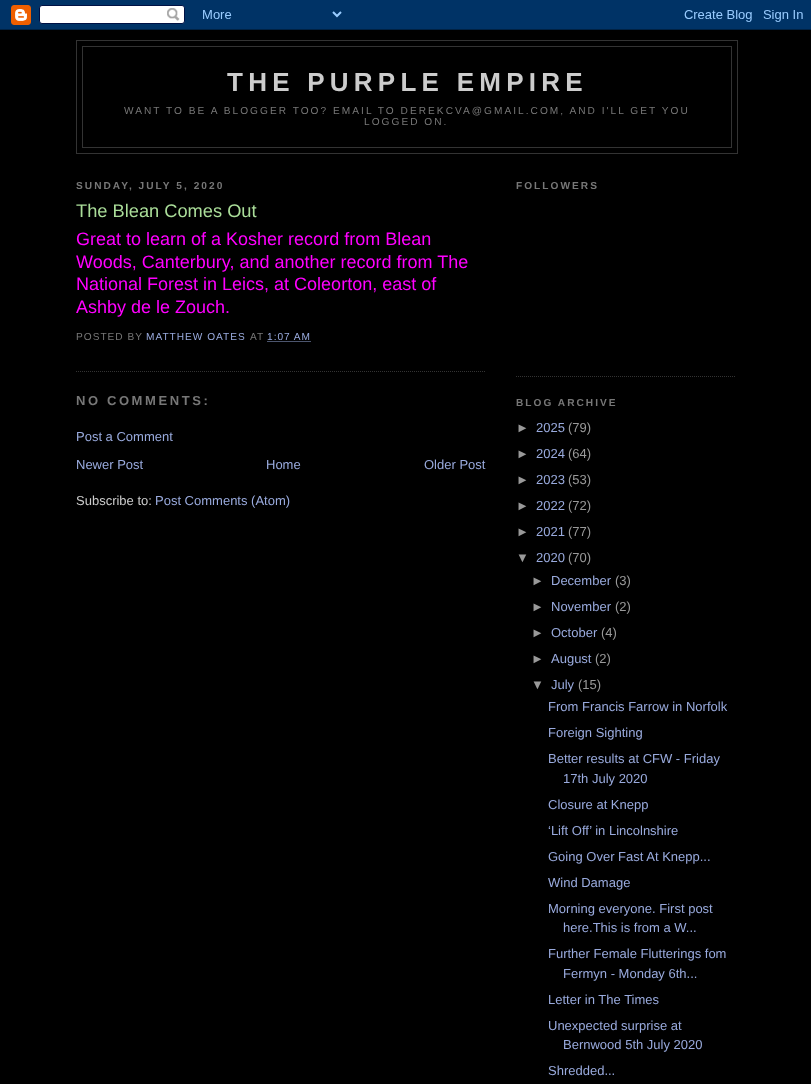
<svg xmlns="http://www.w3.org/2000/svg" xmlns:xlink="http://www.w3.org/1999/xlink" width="811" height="1084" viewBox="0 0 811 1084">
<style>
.cls-1{font:bold 26px Liberation Sans;letter-spacing:5.25px;fill:#cccccc}
.cls-2{font:10.15px Liberation Sans;letter-spacing:2.03px;fill:#777777}
.cls-3{font:bold 10.15px Liberation Sans;letter-spacing:2.03px;fill:#777777}
.cls-4{font:18.25px Liberation Sans;fill:#aadd99}
.cls-5{font:18px Liberation Sans;fill:#ff00ff}
.cls-6{font:10.15px Liberation Sans;letter-spacing:1px;fill:#777777}
.cls-7{font:10.15px Liberation Sans;letter-spacing:1px;fill:#99aadd}
.cls-8{font:bold 13px Liberation Sans;letter-spacing:2.6px;fill:#777777}
.cls-9{font:13px Liberation Sans;fill:#99aadd}
.cls-10{font:13px Liberation Sans;fill:#cccccc}
.cls-11{font:13px Liberation Sans;fill:#999999}
</style>
<rect width="100%" height="100%" fill="#000000"/>
<image xlink:href="image0.png" x="0" y="0" width="811" height="30"/>
<rect fill="none" stroke="#333333" x="76.5" y="40.5" width="661" height="113"/>
<rect fill="none" stroke="#333333" x="82.5" y="46.5" width="649" height="101"/>
<path fill="none" stroke="#333333" stroke-dasharray="1 1" d="M76 371.5H486"/>
<path fill="none" stroke="#99aadd" stroke-dasharray="1 1" d="M267.5 341.5H311.5"/>
<path fill="none" stroke="#333333" stroke-dasharray="1 1" d="M516 376.5H736"/>
<text class="cls-1" x="227" y="91">THE PURPLE EMPIRE</text>
<text class="cls-2" x="124" y="114">WANT TO BE A BLOGGER TOO? EMAIL TO DEREKCVA@GMAIL.COM, AND I'LL GET YOU</text>
<text class="cls-2" x="364" y="125">LOGGED ON.</text>
<text class="cls-3" x="76" y="189">SUNDAY, JULY 5, 2020</text>
<text class="cls-4" x="76" y="217">The Blean Comes Out</text>
<text class="cls-5"><tspan x="76" y="245">Great to learn of a Kosher record from Blean</tspan><tspan x="76" y="268">Woods, Canterbury, and another record from The</tspan><tspan x="76" y="290">National Forest in Leics, at Coleorton, east of</tspan><tspan x="76" y="313">Ashby de le Zouch.</tspan></text>
<text class="cls-6" x="76" y="340">POSTED BY</text>
<text class="cls-7" x="146" y="340">MATTHEW OATES</text>
<text class="cls-6" x="250" y="340">AT</text>
<text class="cls-7" x="267" y="340">1:07 AM</text>
<text class="cls-8" x="76" y="405">NO COMMENTS:</text>
<text class="cls-9" x="76" y="441">Post a Comment</text>
<text class="cls-9" x="76" y="469">Newer Post</text>
<text class="cls-9" x="266" y="469">Home</text>
<text class="cls-9" x="424" y="469">Older Post</text>
<text class="cls-10" x="76" y="505">Subscribe to:</text>
<text class="cls-9" x="155" y="505">Post Comments (Atom)</text>
<text class="cls-3" x="516" y="189">FOLLOWERS</text>
<text class="cls-3" x="516" y="406">BLOG ARCHIVE</text>
<text class="cls-11" x="516" y="432">►</text>
<text class="cls-9" x="536" y="432">2025</text>
<text class="cls-11" x="568" y="432">(79)</text>
<text class="cls-11" x="516" y="458">►</text>
<text class="cls-9" x="536" y="458">2024</text>
<text class="cls-11" x="568" y="458">(64)</text>
<text class="cls-11" x="516" y="484">►</text>
<text class="cls-9" x="536" y="484">2023</text>
<text class="cls-11" x="568" y="484">(53)</text>
<text class="cls-11" x="516" y="510">►</text>
<text class="cls-9" x="536" y="510">2022</text>
<text class="cls-11" x="568" y="510">(72)</text>
<text class="cls-11" x="516" y="536">►</text>
<text class="cls-9" x="536" y="536">2021</text>
<text class="cls-11" x="568" y="536">(77)</text>
<text class="cls-11" x="516" y="562">▼</text>
<text class="cls-9" x="536" y="562">2020</text>
<text class="cls-11" x="568" y="562">(70)</text>
<text class="cls-11" x="531" y="585">►</text>
<text class="cls-9" x="551" y="585">December</text>
<text class="cls-11" x="615" y="585">(3)</text>
<text class="cls-11" x="531" y="611">►</text>
<text class="cls-9" x="551" y="611">November</text>
<text class="cls-11" x="615" y="611">(2)</text>
<text class="cls-11" x="531" y="637">►</text>
<text class="cls-9" x="551" y="637">October</text>
<text class="cls-11" x="601" y="637">(4)</text>
<text class="cls-11" x="531" y="663">►</text>
<text class="cls-9" x="551" y="663">August</text>
<text class="cls-11" x="595" y="663">(2)</text>
<text class="cls-11" x="531" y="689">▼</text>
<text class="cls-9" x="551" y="689">July</text>
<text class="cls-11" x="578" y="689">(15)</text>
<text class="cls-9" x="548" y="711">From Francis Farrow in Norfolk</text>
<text class="cls-9" x="548" y="737">Foreign Sighting</text>
<text class="cls-9" x="548" y="763">Better results at CFW - Friday</text>
<text class="cls-9" x="563" y="783">17th July 2020</text>
<text class="cls-9" x="548" y="809">Closure at Knepp</text>
<text class="cls-9" x="548" y="835">‘Lift Off’ in Lincolnshire</text>
<text class="cls-9" x="548" y="861">Going Over Fast At Knepp...</text>
<text class="cls-9" x="548" y="887">Wind Damage</text>
<text class="cls-9" x="548" y="913">Morning everyone. First post</text>
<text class="cls-9" x="563" y="932">here.This is from a W...</text>
<text class="cls-9" x="548" y="958">Further Female Flutterings fom</text>
<text class="cls-9" x="563" y="978">Fermyn - Monday 6th...</text>
<text class="cls-9" x="548" y="1004">Letter in The Times</text>
<text class="cls-9" x="548" y="1030">Unexpected surprise at</text>
<text class="cls-9" x="563" y="1049">Bernwood 5th July 2020</text>
<text class="cls-9" x="548" y="1075">Shredded...</text>
</svg>
